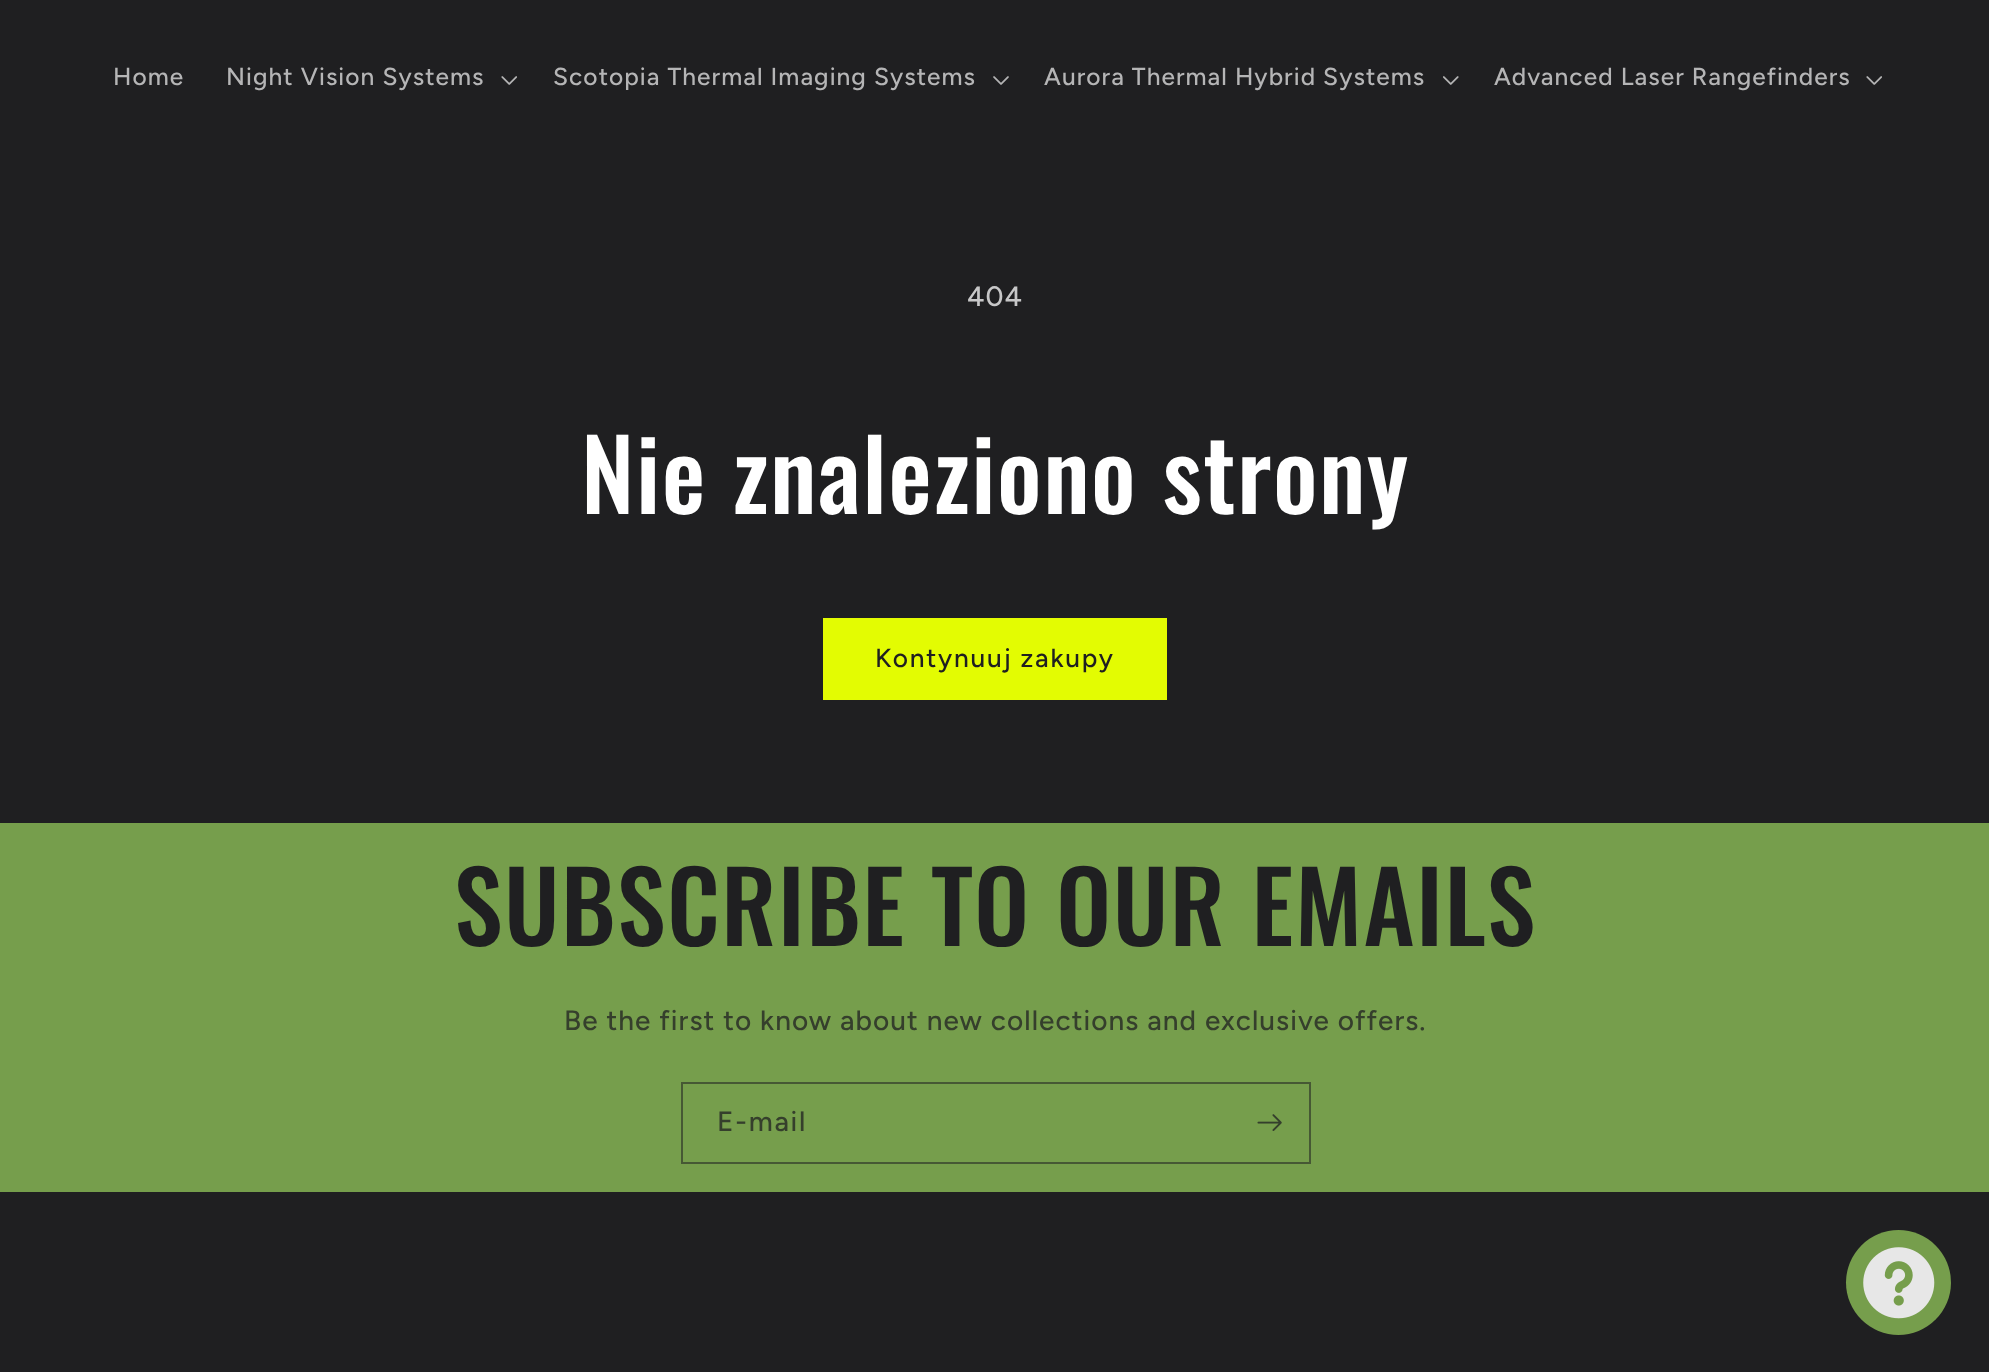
<svg xmlns="http://www.w3.org/2000/svg" xmlns:xlink="http://www.w3.org/1999/xlink" width="1989" height="1372" viewBox="0 0 1989 1372">
<style>
.cls-1{font:500 24.5px Figtree;letter-spacing:1.05px;fill:#b5b5b6}
.cls-2{font:500 28px Figtree;letter-spacing:1.05px;fill:#c7c7c8}
.cls-3{font:500 98px Oswald;letter-spacing:1.5px;fill:#ffffff}
.cls-4{font:500 26.25px Figtree;letter-spacing:1.75px;fill:#1f1f21}
.cls-5{font:500 98px Oswald;letter-spacing:1.5px;fill:#1f1f21}
.cls-6{font:500 28px Figtree;letter-spacing:1.05px;fill:#353f2c}
.cls-7{font:500 28px Figtree;letter-spacing:1.75px;fill:#353f2c}
</style>
<rect width="100%" height="100%" fill="#1f1f21"/>
<image xlink:href="image0.png" x="501" y="76" width="16" height="9"/>
<image xlink:href="image1.png" x="993" y="76" width="16" height="9"/>
<image xlink:href="image2.png" x="1443" y="76" width="16" height="9"/>
<image xlink:href="image0.png" x="1866" y="76" width="16" height="9"/>
<rect fill="#e3fc02" x="823" y="618" width="344" height="82"/>
<rect fill="#769e4c" x="0" y="823" width="1989" height="369"/>
<rect fill="none" stroke="#465834" stroke-width="2" x="682" y="1083" width="628" height="80"/>
<image xlink:href="image3.png" x="1257" y="1114" width="25" height="17"/>
<circle fill="#769e4c" cx="1898.5" cy="1282.5" r="52.5"/>
<image xlink:href="image4.png" x="1863" y="1247" width="72" height="72"/>
<text class="cls-1" x="113" y="85">Home</text>
<text class="cls-1" x="226" y="85">Night Vision Systems</text>
<text class="cls-1" x="553" y="85">Scotopia Thermal Imaging Systems</text>
<text class="cls-1" x="1044" y="85">Aurora Thermal Hybrid Systems</text>
<text class="cls-1" x="1494" y="85">Advanced Laser Rangefinders</text>
<text class="cls-2" x="967" y="306">404</text>
<text class="cls-3" x="581" y="514">Nie znaleziono strony</text>
<text class="cls-4" x="875" y="667">Kontynuuj zakupy</text>
<text class="cls-5" x="454" y="946">SUBSCRIBE TO OUR EMAILS</text>
<text class="cls-6" x="564" y="1030">Be the first to know about new collections and exclusive offers.</text>
<text class="cls-7" x="717" y="1131">E-mail</text>
</svg>
